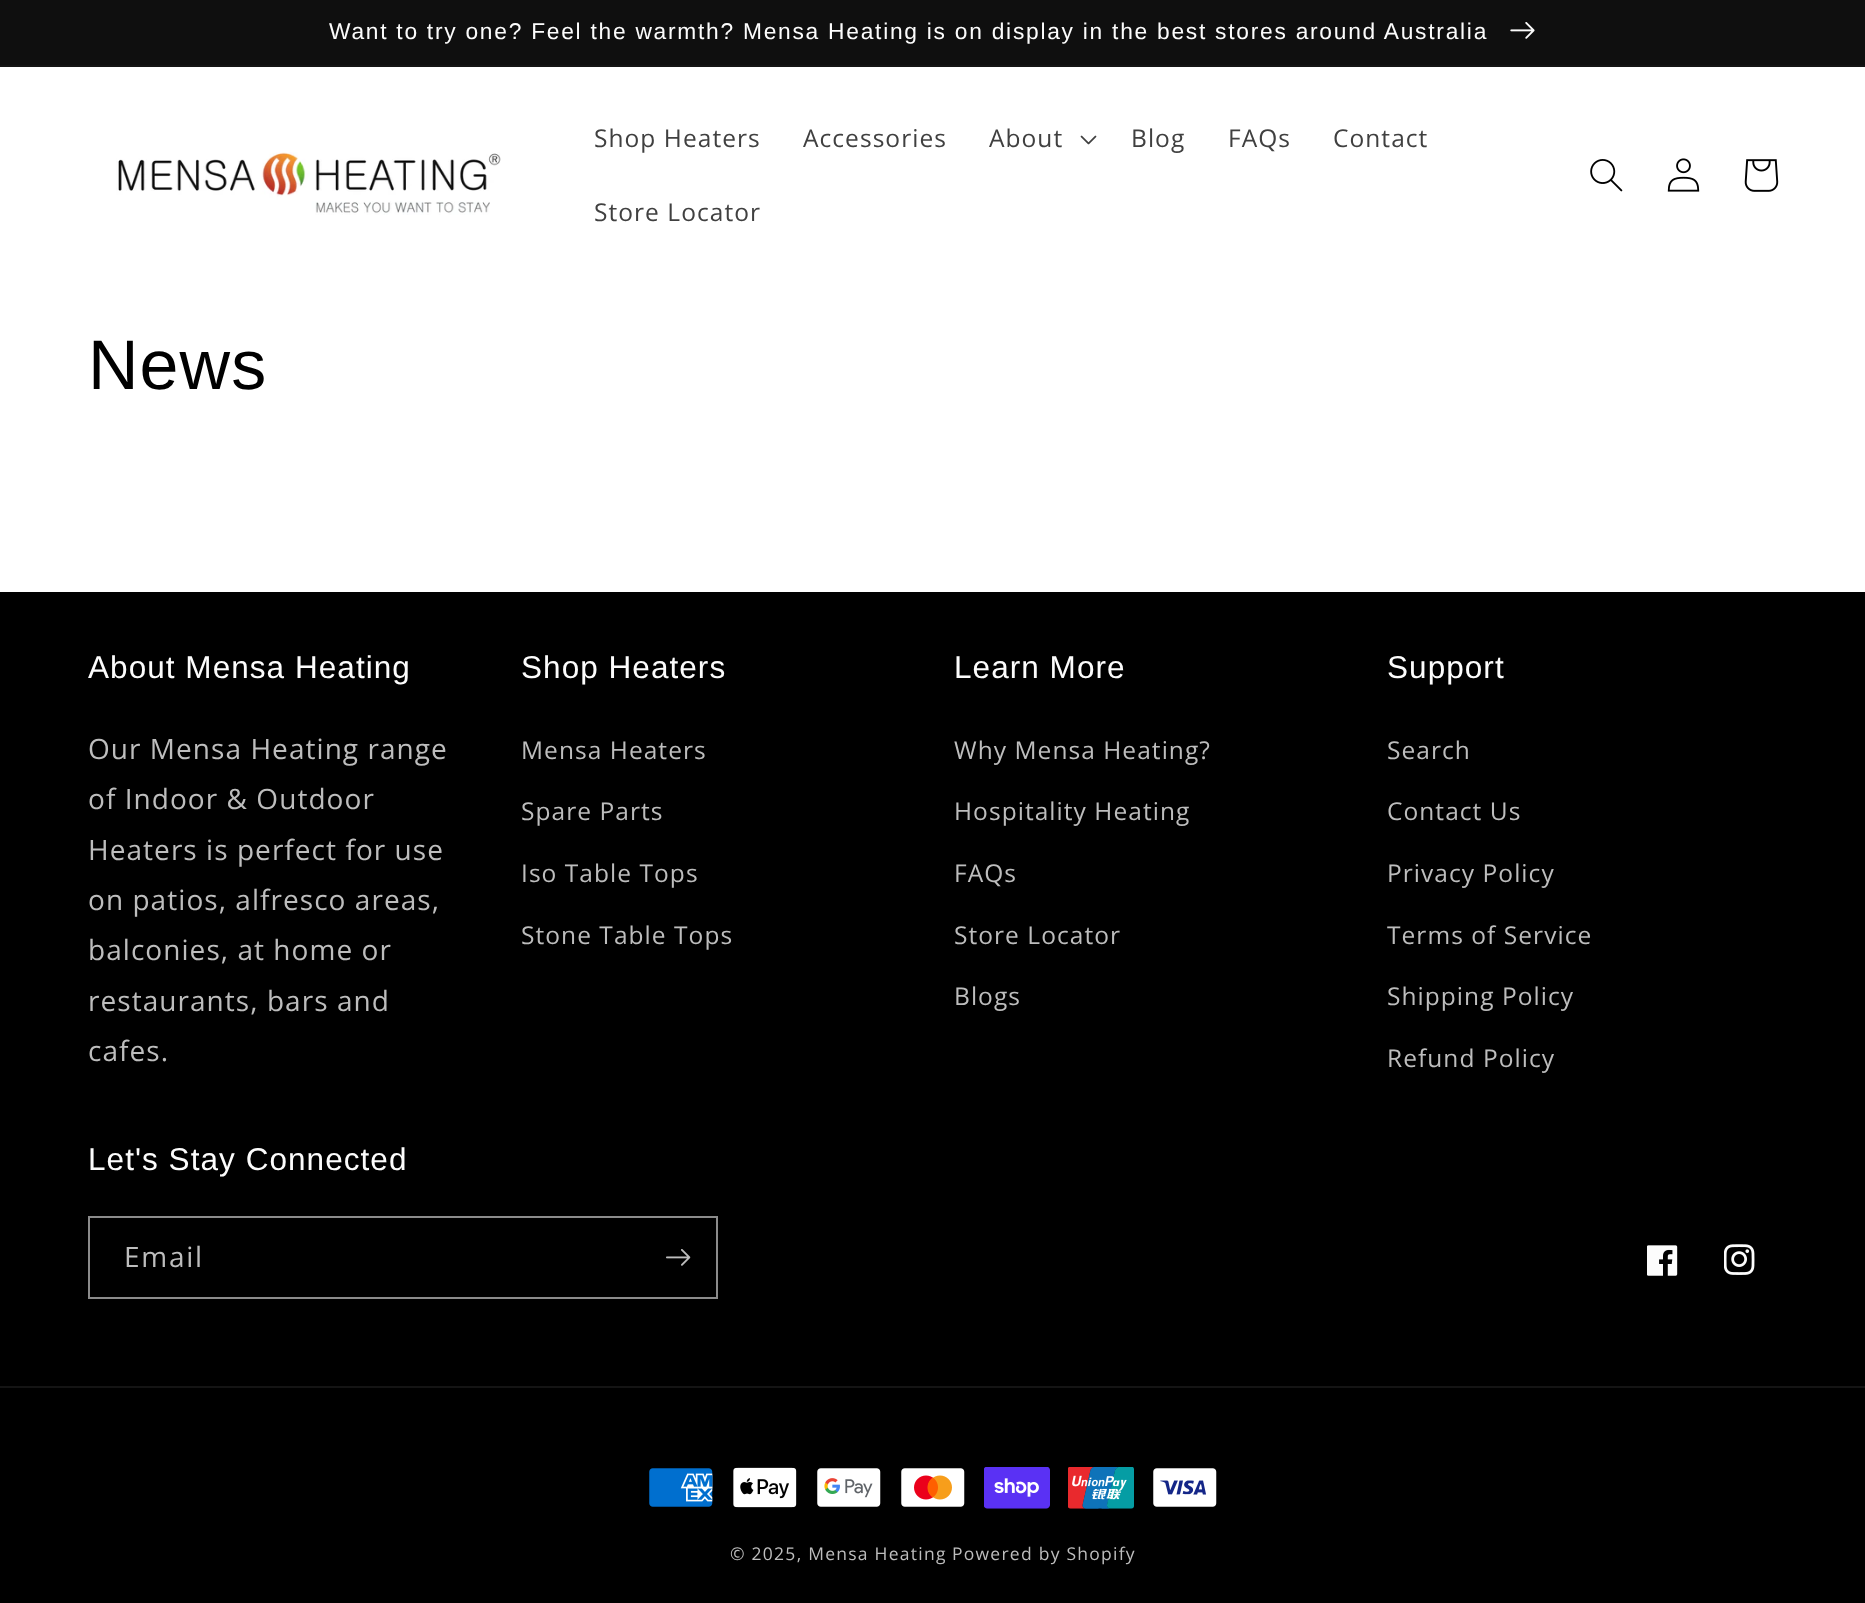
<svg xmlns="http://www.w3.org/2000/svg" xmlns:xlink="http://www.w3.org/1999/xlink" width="1865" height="1603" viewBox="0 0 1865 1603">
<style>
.cls-1{font:22.75px Liberation Sans;letter-spacing:1.75px;fill:#fcfcfc}
.cls-2{font:24.5px Open Sans;letter-spacing:1.05px;fill:#404040}
.cls-3{font:70px Liberation Sans;letter-spacing:1.05px;fill:#000000}
.cls-4{font:31.5px Liberation Sans;letter-spacing:1.05px;fill:#fcfcfc}
.cls-5{font:28px Open Sans;letter-spacing:1.05px;fill:#bdbdbd}
.cls-6{font:24.5px Open Sans;letter-spacing:1.05px;fill:#bdbdbd}
.cls-7{font:28px Open Sans;letter-spacing:1.75px;fill:#bdbdbd}
.cls-8{font:17.5px Open Sans;letter-spacing:1.25px;fill:#bdbdbd}
</style>
<rect width="100%" height="100%" fill="#ffffff"/>
<rect fill="#141414" x="0" y="65" width="1865" height="2"/>
<rect fill="#0f0f0f" x="0" y="0" width="1865" height="65"/>
<image xlink:href="image0.png" x="1510" y="22" width="25" height="17"/>
<image xlink:href="image1.png" x="116" y="152" width="385" height="63"/>
<image xlink:href="image2.png" x="1080" y="135" width="17" height="10"/>
<image xlink:href="image3.png" x="1590" y="159" width="33" height="33"/>
<image xlink:href="image4.png" x="1667" y="158" width="33" height="34"/>
<image xlink:href="image5.png" x="1744" y="159" width="35" height="33"/>
<rect fill="#000000" x="0" y="592" width="1865" height="1011"/>
<rect fill="none" stroke="#8b8b8b" stroke-width="2" x="89" y="1217" width="628" height="81"/>
<image xlink:href="image6.png" x="666" y="1249" width="25" height="17"/>
<image xlink:href="image7.png" x="1647" y="1245" width="31" height="31"/>
<image xlink:href="image8.png" x="1724" y="1244" width="31" height="31"/>
<rect fill="#141414" x="0" y="1386" width="1865" height="2"/>
<image xlink:href="image9.png" x="649" y="1468" width="64" height="39"/>
<image xlink:href="image10.png" x="733" y="1467" width="64" height="41"/>
<image xlink:href="image11.png" x="817" y="1468" width="64" height="39"/>
<image xlink:href="image12.png" x="901" y="1468" width="64" height="39"/>
<image xlink:href="image13.png" x="984" y="1467" width="66" height="42"/>
<image xlink:href="image14.png" x="1068" y="1467" width="66" height="42"/>
<image xlink:href="image15.png" x="1153" y="1468" width="64" height="39"/>
<text class="cls-1" x="329" y="39">Want to try one? Feel the warmth? Mensa Heating is on display in the best stores around Australia</text>
<text class="cls-2" x="594" y="147">Shop Heaters</text>
<text class="cls-2" x="803" y="147">Accessories</text>
<text class="cls-2" x="989" y="147">About</text>
<text class="cls-2" x="1131" y="147">Blog</text>
<text class="cls-2" x="1228" y="147">FAQs</text>
<text class="cls-2" x="1333" y="147">Contact</text>
<text class="cls-2" x="594" y="221">Store Locator</text>
<text class="cls-3" x="88" y="389">News</text>
<text class="cls-4" x="88" y="678">About Mensa Heating</text>
<text class="cls-5"><tspan x="88" y="759">Our Mensa Heating range</tspan><tspan x="88" y="809">of Indoor &amp; Outdoor</tspan><tspan x="88" y="860">Heaters is perfect for use</tspan><tspan x="88" y="910">on patios, alfresco areas,</tspan><tspan x="88" y="960">balconies, at home or</tspan><tspan x="88" y="1011">restaurants, bars and</tspan><tspan x="88" y="1061">cafes.</tspan></text>
<text class="cls-4" x="521" y="678">Shop Heaters</text>
<text class="cls-6" x="521" y="759">Mensa Heaters</text>
<text class="cls-6" x="521" y="820">Spare Parts</text>
<text class="cls-6" x="521" y="882">Iso Table Tops</text>
<text class="cls-6" x="521" y="944">Stone Table Tops</text>
<text class="cls-4" x="954" y="678">Learn More</text>
<text class="cls-6" x="954" y="759">Why Mensa Heating?</text>
<text class="cls-6" x="954" y="820">Hospitality Heating</text>
<text class="cls-6" x="954" y="882">FAQs</text>
<text class="cls-6" x="954" y="944">Store Locator</text>
<text class="cls-6" x="954" y="1005">Blogs</text>
<text class="cls-4" x="1387" y="678">Support</text>
<text class="cls-6" x="1387" y="759">Search</text>
<text class="cls-6" x="1387" y="820">Contact Us</text>
<text class="cls-6" x="1387" y="882">Privacy Policy</text>
<text class="cls-6" x="1387" y="944">Terms of Service</text>
<text class="cls-6" x="1387" y="1005">Shipping Policy</text>
<text class="cls-6" x="1387" y="1067">Refund Policy</text>
<text class="cls-4" x="88" y="1170">Let's Stay Connected</text>
<text class="cls-7" x="124" y="1267">Email</text>
<text class="cls-8" x="730" y="1560">© 2025, Mensa Heating</text>
<text class="cls-8" x="952" y="1560">Powered by Shopify</text>
</svg>
